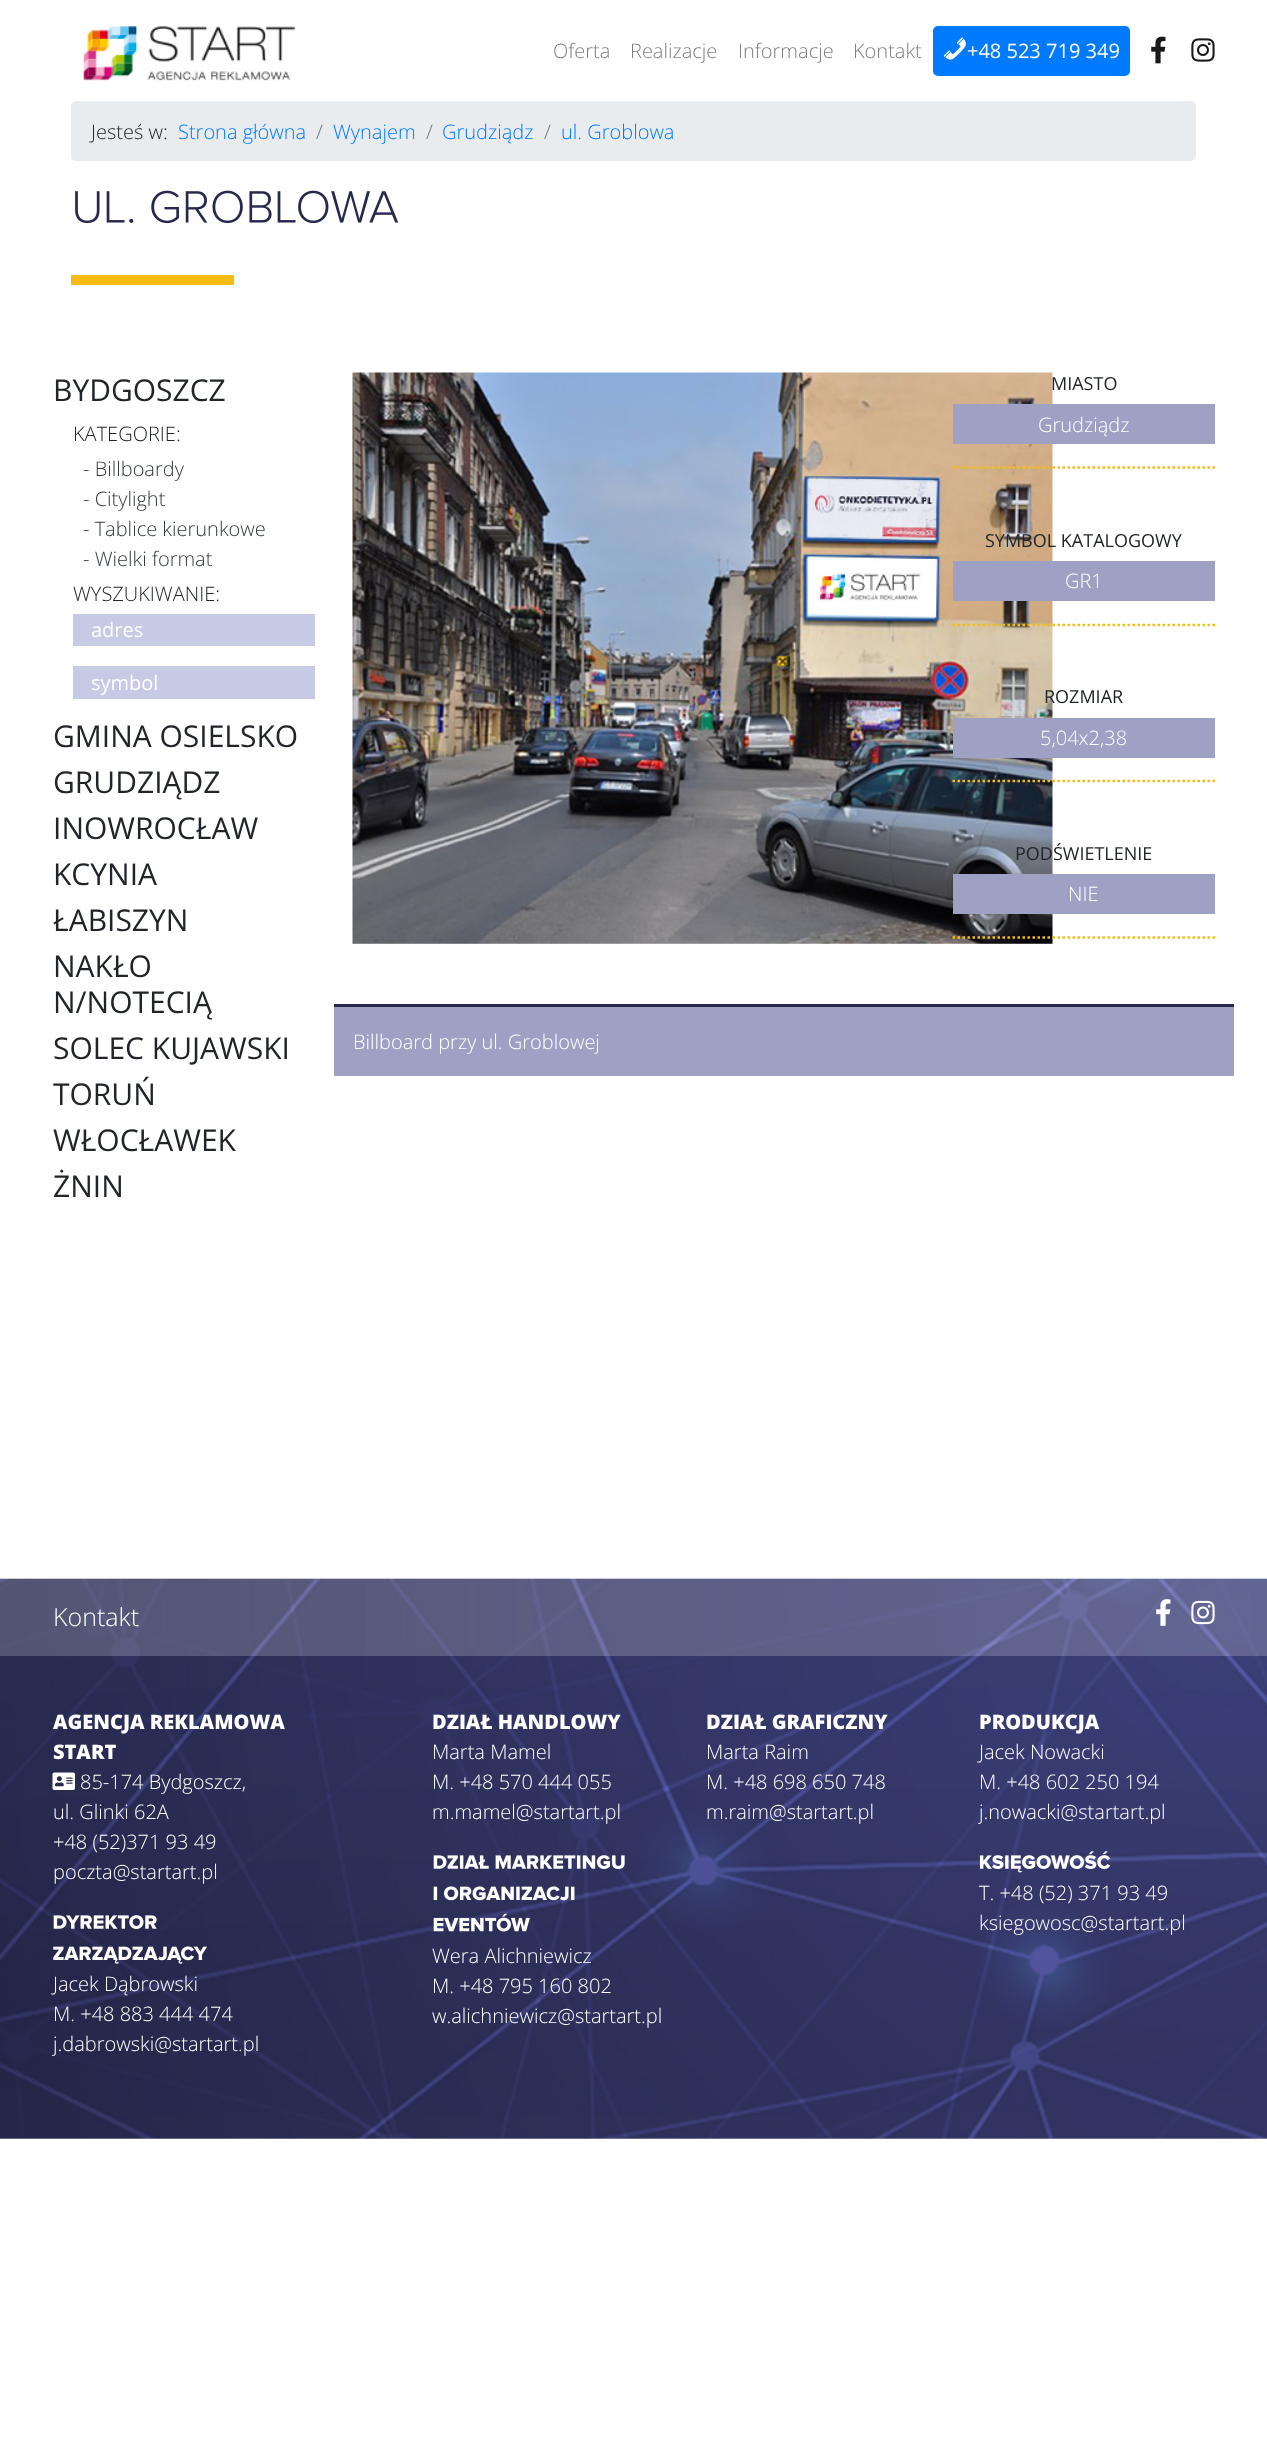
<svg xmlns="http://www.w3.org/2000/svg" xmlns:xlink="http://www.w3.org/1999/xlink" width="1267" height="2457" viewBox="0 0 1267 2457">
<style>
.cls-1{font:300 20px Open Sans;fill:#808080}
.cls-2{font:20px Open Sans;fill:#ffffff}
.cls-3{font:300 20px Open Sans;fill:#212529}
.cls-4{font:300 20px Open Sans;fill:#007bff}
.cls-5{font:300 20px Open Sans;fill:#6c757d}
.cls-6{font:30px Open Sans;fill:#212529}
.cls-7{font:300 20px Open Sans;fill:#343a40}
.cls-8{font:18px Open Sans;fill:#212529}
.cls-9{font:300 20px Open Sans;fill:#ffffff}
.cls-10{font:300 25px Open Sans;fill:#ffffff}
.cls-11{font:800 20px Open Sans;fill:#ffffff}
</style>
<rect width="100%" height="100%" fill="#ffffff"/>
<rect fill="#e9ecef" x="71" y="101" width="1125" height="60" rx="5"/>
<image xlink:href="image0.png" x="74" y="26" width="290" height="76"/>
<rect fill="#007bff" x="933" y="26" width="197" height="50" rx="5"/>
<image xlink:href="image1.png" x="943" y="37" width="23" height="23"/>
<image xlink:href="image2.png" x="1151" y="36" width="15" height="28"/>
<image xlink:href="image3.png" x="1191" y="38" width="24" height="24"/>
<image xlink:href="image4.png" x="75" y="190" width="324" height="34"/>
<rect fill="#f5bd10" x="71" y="275" width="163" height="10"/>
<rect fill="#c7cae5" x="73" y="614" width="242" height="32"/>
<rect fill="#c7cae5" x="73" y="666" width="242" height="33"/>
<image xlink:href="image5.png" x="352" y="372" width="701" height="572"/>
<path fill="none" stroke="#f5bd10" stroke-width="2.5" stroke-dasharray="2.5 2.5" d="M952.5 467.5H1215"/>
<rect fill="#9fa1c4" x="953" y="404" width="262" height="40"/>
<path fill="none" stroke="#f5bd10" stroke-width="2.5" stroke-dasharray="2.5 2.5" d="M952.5 625H1215"/>
<rect fill="#9fa1c4" x="953" y="561" width="262" height="40"/>
<path fill="none" stroke="#f5bd10" stroke-width="2.5" stroke-dasharray="2.5 2.5" d="M952.5 781H1215"/>
<rect fill="#9fa1c4" x="953" y="718" width="262" height="40"/>
<path fill="none" stroke="#f5bd10" stroke-width="2.5" stroke-dasharray="2.5 2.5" d="M952.5 937.5H1215"/>
<rect fill="#9fa1c4" x="953" y="874" width="262" height="40"/>
<rect fill="#9fa1c4" x="334" y="1007" width="900" height="69"/>
<rect fill="#26294c" x="334" y="1004" width="900" height="3"/>
<image xlink:href="image6.png" x="0" y="1578" width="1267" height="561"/>
<rect fill="#ffffff" fill-opacity="0.2" x="0" y="1579" width="1267" height="77"/>
<image xlink:href="image7.png" x="1156" y="1599" width="15" height="27"/>
<image xlink:href="image8.png" x="1191" y="1600" width="24" height="25"/>
<image xlink:href="image9.png" x="52" y="1772" width="23" height="18"/>
<image xlink:href="image10.png" x="53" y="1915" width="104" height="14"/>
<image xlink:href="image11.png" x="53" y="1946" width="154" height="18"/>
<image xlink:href="image12.png" x="433" y="1855" width="192" height="14"/>
<image xlink:href="image13.png" x="433" y="1886" width="142" height="15"/>
<image xlink:href="image14.png" x="433" y="1913" width="97" height="19"/>
<image xlink:href="image15.png" x="979" y="1851" width="132" height="22"/>
<text class="cls-1" x="553" y="58">Oferta</text>
<text class="cls-1" x="630" y="58">Realizacje</text>
<text class="cls-1" x="738" y="58">Informacje</text>
<text class="cls-1" x="853" y="58">Kontakt</text>
<text class="cls-2" x="967" y="58">+48 523 719 349</text>
<text class="cls-3" x="91" y="139">Jesteś w:</text>
<text class="cls-4" x="178" y="139">Strona główna</text>
<text class="cls-5" x="316" y="139">/</text>
<text class="cls-4" x="333" y="139">Wynajem</text>
<text class="cls-5" x="426" y="139">/</text>
<text class="cls-4" x="442" y="139">Grudziądz</text>
<text class="cls-5" x="544" y="139">/</text>
<text class="cls-4" x="561" y="139">ul. Groblowa</text>
<text class="cls-6" x="53" y="401">BYDGOSZCZ</text>
<text class="cls-3" x="73" y="441">KATEGORIE:</text>
<text class="cls-7"><tspan x="83" y="476">- Billboardy</tspan><tspan x="83" y="506">- Citylight</tspan><tspan x="83" y="536">- Tablice kierunkowe</tspan><tspan x="83" y="566">- Wielki format</tspan></text>
<text class="cls-3" x="73" y="601">WYSZUKIWANIE:</text>
<text class="cls-2" x="91" y="637">adres</text>
<text class="cls-2" x="91" y="690">symbol</text>
<text class="cls-6"><tspan x="53" y="747">GMINA OSIELSKO</tspan><tspan x="53" y="793">GRUDZIĄDZ</tspan><tspan x="53" y="839">INOWROCŁAW</tspan><tspan x="53" y="885">KCYNIA</tspan><tspan x="53" y="931">ŁABISZYN</tspan><tspan x="53" y="977">NAKŁO</tspan><tspan x="53" y="1013">N/NOTECIĄ</tspan><tspan x="53" y="1059">SOLEC KUJAWSKI</tspan><tspan x="53" y="1105">TORUŃ</tspan><tspan x="53" y="1151">WŁOCŁAWEK</tspan><tspan x="53" y="1197">ŻNIN</tspan></text>
<text class="cls-8" x="1051" y="390">MIASTO</text>
<text class="cls-9" x="1038" y="432">Grudziądz</text>
<text class="cls-8" x="985" y="547">SYMBOL KATALOGOWY</text>
<text class="cls-9" x="1065" y="588">GR1</text>
<text class="cls-8" x="1044" y="703">ROZMIAR</text>
<text class="cls-9" x="1040" y="745">5,04x2,38</text>
<text class="cls-8" x="1015" y="860">PODŚWIETLENIE</text>
<text class="cls-9" x="1068" y="901">NIE</text>
<text class="cls-9" x="353" y="1049">Billboard przy ul. Groblowej</text>
<text class="cls-10" x="53" y="1626">Kontakt</text>
<text class="cls-11"><tspan x="53" y="1729">AGENCJA REKLAMOWA</tspan><tspan x="53" y="1759">START</tspan></text>
<text class="cls-9" x="80" y="1789">85-174 Bydgoszcz,</text>
<text class="cls-9"><tspan x="53" y="1819">ul. Glinki 62A</tspan><tspan x="53" y="1849">+48 (52)371 93 49</tspan><tspan x="53" y="1879">poczta@startart.pl</tspan></text>
<text class="cls-9"><tspan x="53" y="1991">Jacek Dąbrowski</tspan><tspan x="53" y="2021">M. +48 883 444 474</tspan><tspan x="53" y="2051">j.dabrowski@startart.pl</tspan></text>
<text class="cls-11" x="432" y="1729">DZIAŁ HANDLOWY</text>
<text class="cls-9"><tspan x="432" y="1759">Marta Mamel</tspan><tspan x="432" y="1789">M. +48 570 444 055</tspan><tspan x="432" y="1819">m.mamel@startart.pl</tspan></text>
<text class="cls-9"><tspan x="432" y="1963">Wera Alichniewicz</tspan><tspan x="432" y="1993">M. +48 795 160 802</tspan><tspan x="432" y="2023">w.alichniewicz@startart.pl</tspan></text>
<text class="cls-11" x="706" y="1729">DZIAŁ GRAFICZNY</text>
<text class="cls-9"><tspan x="706" y="1759">Marta Raim</tspan><tspan x="706" y="1789">M. +48 698 650 748</tspan><tspan x="706" y="1819">m.raim@startart.pl</tspan></text>
<text class="cls-11" x="979" y="1729">PRODUKCJA</text>
<text class="cls-9"><tspan x="979" y="1759">Jacek Nowacki</tspan><tspan x="979" y="1789">M. +48 602 250 194</tspan><tspan x="979" y="1819">j.nowacki@startart.pl</tspan></text>
<text class="cls-9"><tspan x="979" y="1900">T. +48 (52) 371 93 49</tspan><tspan x="979" y="1930">ksiegowosc@startart.pl</tspan></text>
</svg>
